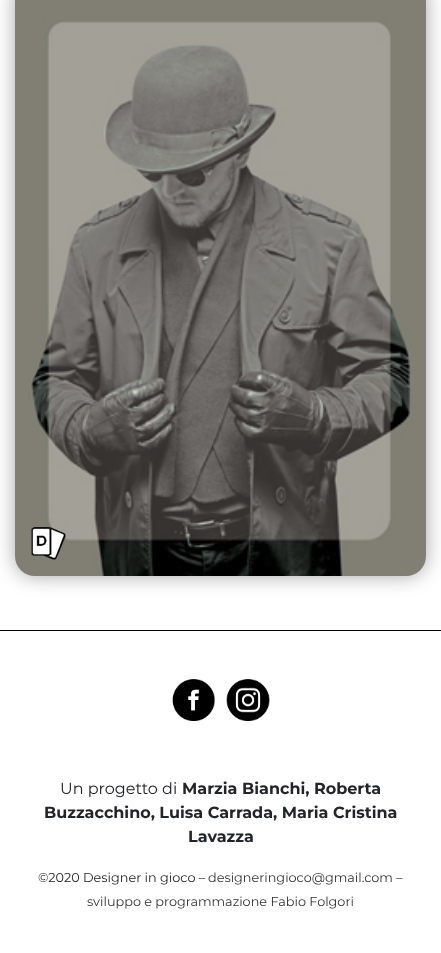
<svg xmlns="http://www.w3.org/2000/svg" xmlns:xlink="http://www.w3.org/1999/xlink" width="441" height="953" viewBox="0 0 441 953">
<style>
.cls-1{font:16px Montserrat;fill:#212529}
.cls-2{font:bold 16px Montserrat;fill:#212529}
.cls-3{font:12.8px Montserrat;fill:#212529}
.cls-4{font:12.8px Montserrat;fill:#333333}
</style>
<rect width="100%" height="100%" fill="#ffffff"/>
<rect fill="#000000" fill-opacity="0.35" filter="blur(10px)" x="15" y="-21" width="411" height="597" rx="20"/>
<image xlink:href="image0.png" x="15" y="0" width="411" height="576"/>
<image xlink:href="image1.png" x="31" y="527" width="35" height="33"/>
<rect fill="#000000" x="0" y="630" width="441" height="1"/>
<image xlink:href="image2.png" x="172" y="679" width="43" height="42"/>
<image xlink:href="image3.png" x="226" y="679" width="44" height="42"/>
<text class="cls-1" x="60" y="794">Un progetto di</text>
<text class="cls-2" x="182" y="794">Marzia Bianchi, Roberta</text>
<text class="cls-2" x="44" y="818">Buzzacchino, Luisa Carrada, Maria Cristina</text>
<text class="cls-2" x="188" y="842">Lavazza</text>
<text class="cls-3" x="38" y="882">©2020 Designer in gioco –</text>
<text class="cls-4" x="208" y="882">designeringioco@gmail.com –</text>
<text class="cls-4" x="87" y="906">sviluppo e programmazione Fabio Folgori</text>
</svg>
